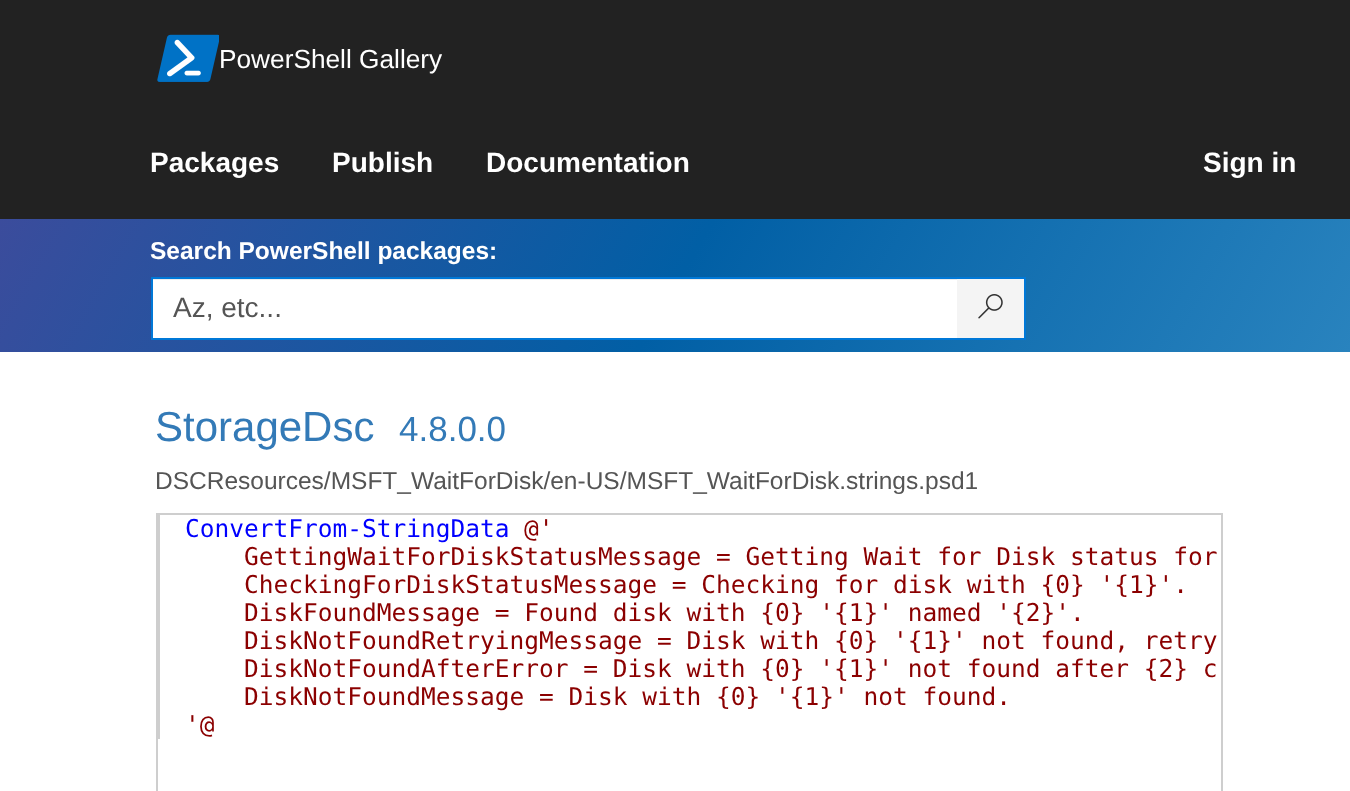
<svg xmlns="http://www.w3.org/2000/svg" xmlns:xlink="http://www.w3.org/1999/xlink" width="1350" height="791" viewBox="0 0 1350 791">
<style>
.cls-1{font:26.25px Liberation Sans;fill:#ffffff}
.cls-2{font:bold 28px Liberation Sans;fill:#ffffff}
.cls-3{font:bold 24.5px Liberation Sans;fill:#ffffff}
.cls-4{font:28px Liberation Sans;fill:#555555}
.cls-5{font:42px Liberation Sans;fill:#337ab7}
.cls-6{font:35px Liberation Sans;fill:#337ab7}
.cls-7{font:24.5px Liberation Sans;fill:#555555}
.cls-8{font:24.5px DejaVu Sans Mono;fill:#0000ff}
.cls-9{font:24.5px DejaVu Sans Mono;fill:#8b0000}
</style>
<defs>
<linearGradient id="g1" gradientUnits="userSpaceOnUse" x1="140" y1="-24" x2="1211" y2="594"><stop offset="0" stop-color="#3b4c9c"/><stop offset="0.5" stop-color="#015fa5"/><stop offset="1" stop-color="#2983be"/></linearGradient>
</defs>
<rect width="100%" height="100%" fill="#ffffff"/>
<rect fill="#222222" x="0" y="0" width="1350" height="219"/>
<image xlink:href="image0.png" x="157" y="34" width="62" height="48"/>
<rect fill="url(#g1)" x="0" y="219" width="1350" height="133"/>
<rect fill="#ffffff" x="153" y="280" width="804" height="58"/>
<rect fill="#ececec" x="152" y="279" width="807" height="1"/>
<rect fill="#0078d7" x="151" y="277" width="875" height="2"/>
<rect fill="#0078d7" x="151" y="338" width="808" height="2"/>
<rect fill="#0078d7" x="151" y="277" width="2" height="63"/>
<rect fill="#f4f4f4" x="957" y="279" width="67" height="59"/>
<rect fill="#0078d7" x="1024" y="277" width="2" height="63"/>
<rect fill="#0078d7" x="957" y="338" width="69" height="2"/>
<image xlink:href="image1.png" x="978" y="294" width="25" height="25"/>
<rect fill="none" stroke="#cecece" stroke-width="2" x="157" y="514" width="1065" height="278"/>
<rect fill="#cecece" x="158" y="515" width="2" height="224"/>
<text class="cls-1" x="219" y="68">PowerShell Gallery</text>
<text class="cls-2" x="150" y="172">Packages</text>
<text class="cls-2" x="332" y="172">Publish</text>
<text class="cls-2" x="486" y="172">Documentation</text>
<text class="cls-2" x="1203" y="172">Sign in</text>
<text class="cls-3" x="150" y="259">Search PowerShell packages:</text>
<text class="cls-4" x="173" y="317">Az, etc...</text>
<text class="cls-5" x="155" y="441">StorageDsc</text>
<text class="cls-6" x="399" y="441">4.8.0.0</text>
<text class="cls-7" x="155" y="489">DSCResources/MSFT_WaitForDisk/en-US/MSFT_WaitForDisk.strings.psd1</text>
<text class="cls-8" x="185" y="537">ConvertFrom-StringData</text>
<text class="cls-9" x="524" y="537">@'</text>
<text class="cls-9"><tspan x="244" y="565">GettingWaitForDiskStatusMessage = Getting Wait for Disk status for</tspan><tspan x="244" y="593">CheckingForDiskStatusMessage = Checking for disk with {0} '{1}'.</tspan><tspan x="244" y="621">DiskFoundMessage = Found disk with {0} '{1}' named '{2}'.</tspan><tspan x="244" y="649">DiskNotFoundRetryingMessage = Disk with {0} '{1}' not found, retry</tspan><tspan x="244" y="677">DiskNotFoundAfterError = Disk with {0} '{1}' not found after {2} c</tspan><tspan x="244" y="705">DiskNotFoundMessage = Disk with {0} '{1}' not found.</tspan></text>
<text class="cls-9" x="185" y="733">'@</text>
</svg>
